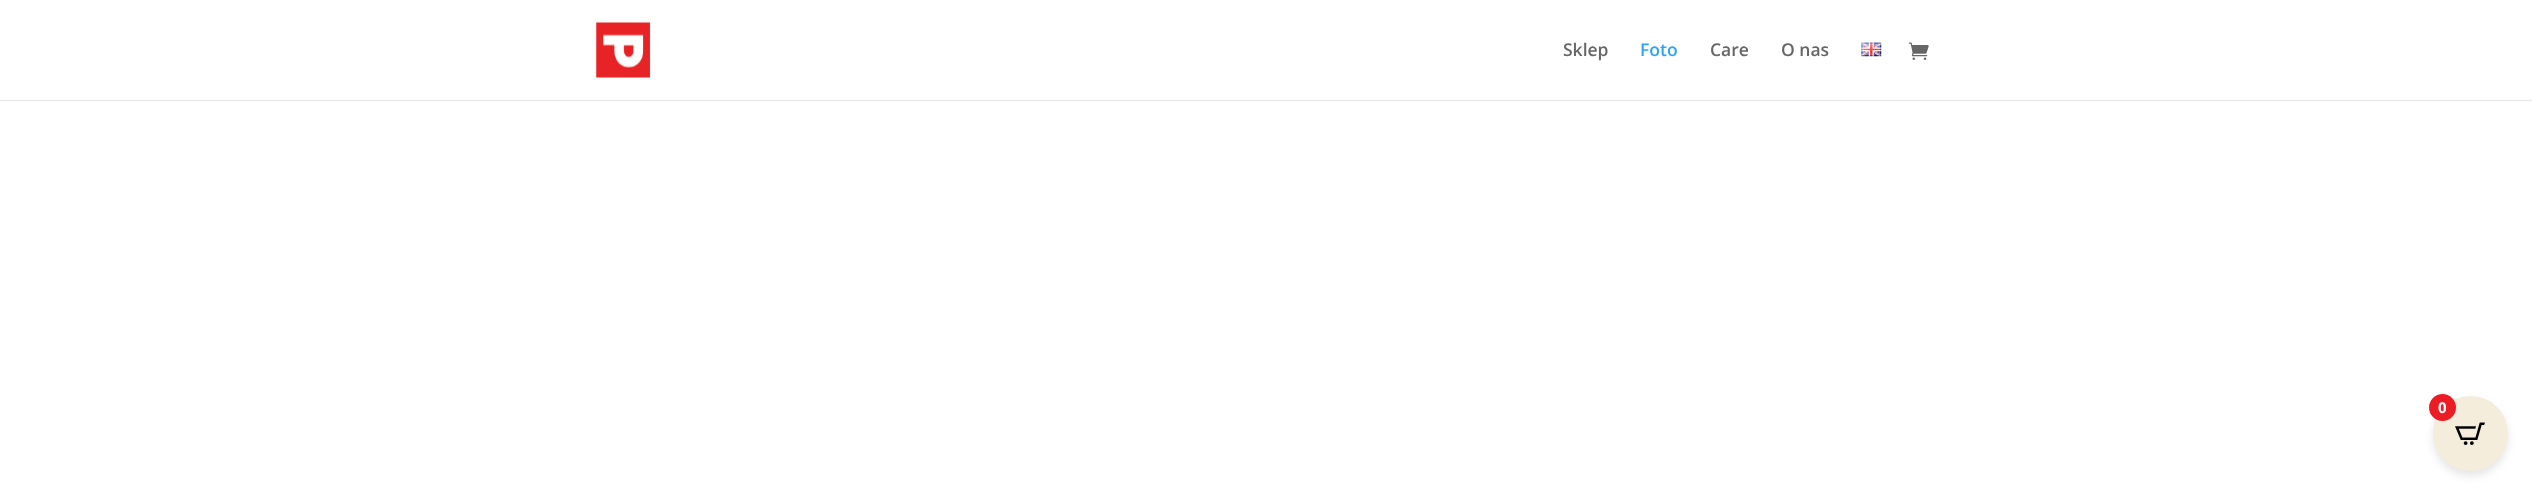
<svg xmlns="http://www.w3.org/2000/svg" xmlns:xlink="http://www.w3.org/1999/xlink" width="2532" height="496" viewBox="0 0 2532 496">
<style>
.cls-1{font:600 17.5px Open Sans;fill:#666666}
.cls-2{font:600 17.5px Open Sans;fill:#2ea3f2}
.cls-3{font:bold 15px Open Sans;fill:#ffffff}
</style>
<rect width="100%" height="100%" fill="#ffffff"/>
<path fill="#e6e6e6" d="M0 100V101H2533V1H2532V100Z"/>
<image xlink:href="image0.png" x="596" y="22" width="55" height="56"/>
<image xlink:href="image1.png" x="1861" y="42" width="21" height="15"/>
<image xlink:href="image2.png" x="1908" y="42" width="21" height="18"/>
<rect fill="#000000" fill-opacity="0.1" filter="blur(4.5px)" x="2433" y="401" width="75" height="75" rx="37.5"/>
<circle fill="#f4eddb" cx="2470.5" cy="433.5" r="37.5"/>
<circle fill="#ec1c24" cx="2442.5" cy="407.5" r="13.5"/>
<image xlink:href="image3.png" x="2455" y="422" width="30" height="23"/>
<text class="cls-1" x="1563" y="56">Sklep</text>
<text class="cls-2" x="1640" y="56">Foto</text>
<text class="cls-1" x="1710" y="56">Care</text>
<text class="cls-1" x="1781" y="56">O nas</text>
<text class="cls-3" x="2438" y="413">0</text>
</svg>
